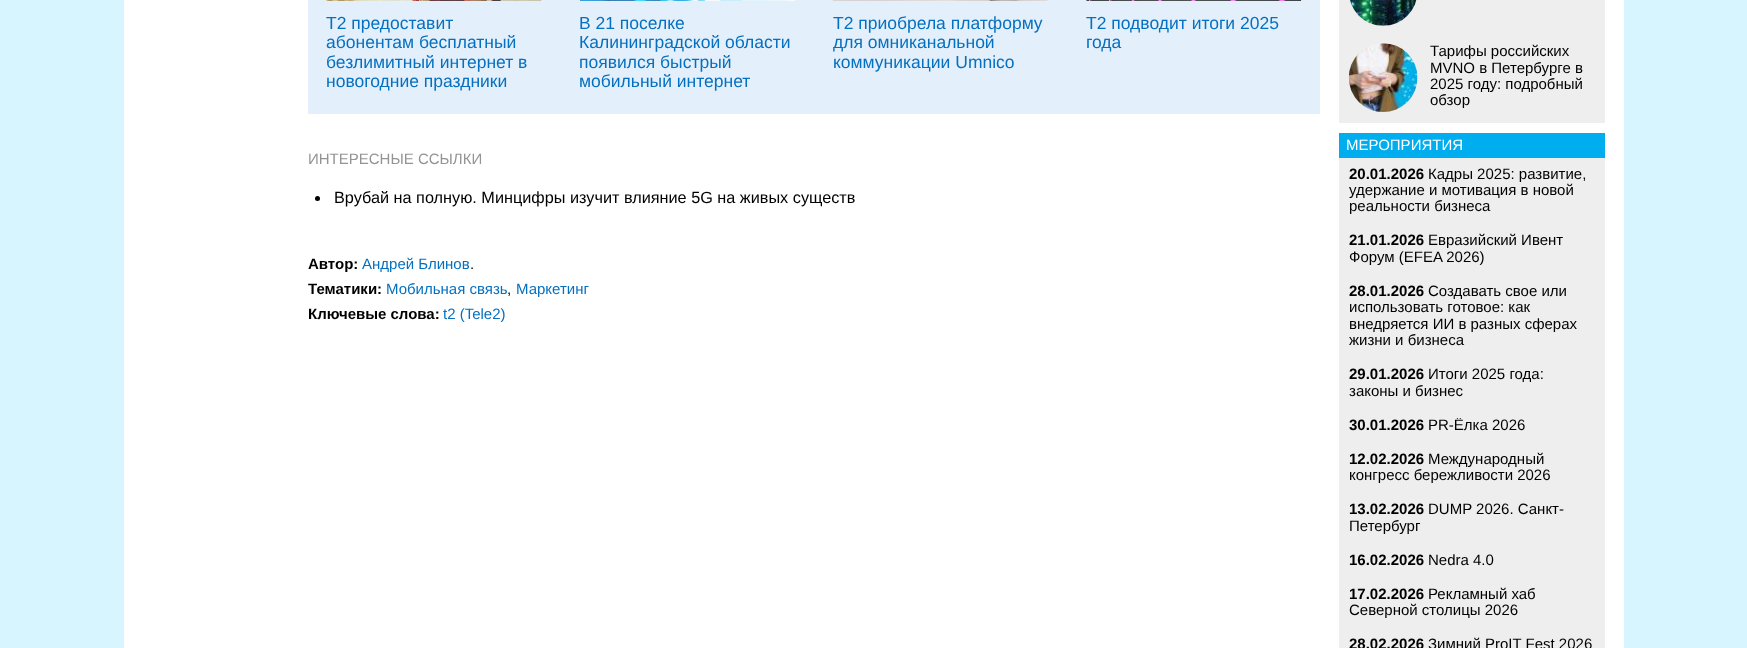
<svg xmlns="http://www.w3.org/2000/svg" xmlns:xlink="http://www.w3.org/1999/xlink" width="1747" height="648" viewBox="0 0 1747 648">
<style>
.cls-1{font:17.5px Liberation Sans;fill:#0570c0}
.cls-2{font:15px Liberation Sans;fill:#949494}
.cls-3{font:16.25px Liberation Sans;fill:#000000}
.cls-4{font:bold 15px Liberation Sans;fill:#000000}
.cls-5{font:15px Liberation Sans;fill:#0570c0}
.cls-6{font:15px Liberation Sans;fill:#000000}
.cls-7{font:15px Liberation Sans;fill:#ffffff}
</style>
<defs>
<clipPath id="clip1"><rect x="833" y="14" width="216" height="81"/></clipPath>
<clipPath id="clip2"><rect x="1349" y="418" width="246" height="16"/></clipPath>
</defs>
<rect width="100%" height="100%" fill="#d7f5ff"/>
<rect fill="#ffffff" x="124" y="0" width="1500" height="648"/>
<rect fill="#e3effb" x="308" y="0" width="1012" height="114"/>
<image xlink:href="image0.png" x="326" y="0" width="216" height="1"/>
<image xlink:href="image1.png" x="580" y="0" width="215" height="1"/>
<image xlink:href="image2.png" x="832" y="0" width="216" height="1"/>
<image xlink:href="image3.png" x="1086" y="0" width="216" height="1"/>
<circle fill="#000000" cx="317.5" cy="198.5" r="2.5"/>
<rect fill="#eeeeee" x="1339" y="0" width="266" height="123"/>
<image xlink:href="image4.png" x="1350" y="0" width="67" height="26"/>
<image xlink:href="image5.png" x="1348" y="43" width="70" height="69"/>
<rect fill="#eeeeee" x="1339" y="158" width="266" height="490"/>
<rect fill="#00adef" x="1339" y="133" width="266" height="25"/>
<text class="cls-1"><tspan x="326" y="29">Т2 предоставит</tspan><tspan x="326" y="48">абонентам бесплатный</tspan><tspan x="326" y="68">безлимитный интернет в</tspan><tspan x="326" y="87">новогодние праздники</tspan></text>
<text class="cls-1"><tspan x="579" y="29">В 21 поселке</tspan><tspan x="579" y="48">Калининградской области</tspan><tspan x="579" y="68">появился быстрый</tspan><tspan x="579" y="87">мобильный интернет</tspan></text>
<text class="cls-1" x="833" y="29">Т2 приобрела платформу</text>
<g clip-path="url(#clip1)">
<text class="cls-1" x="833" y="48">для омниканальной</text>
</g>
<text class="cls-1" x="833" y="68">коммуникации Umnico</text>
<text class="cls-1"><tspan x="1086" y="29">T2 подводит итоги 2025</tspan><tspan x="1086" y="48">года</tspan></text>
<text class="cls-2" x="308" y="164">ИНТЕРЕСНЫЕ ССЫЛКИ</text>
<text class="cls-3" x="334" y="203">Врубай на полную. Минцифры изучит влияние 5G на живых существ</text>
<text class="cls-4" x="308" y="269">Автор:</text>
<text class="cls-5" x="362" y="269">Андрей Блинов</text>
<text class="cls-6" x="470" y="269">.</text>
<text class="cls-4" x="308" y="294">Тематики:</text>
<text class="cls-5" x="386" y="294">Мобильная связь</text>
<text class="cls-6" x="507" y="294">,</text>
<text class="cls-5" x="516" y="294">Маркетинг</text>
<text class="cls-4" x="308" y="319">Ключевые слова:</text>
<text class="cls-5" x="443" y="319">t2 (Tele2)</text>
<text class="cls-6"><tspan x="1430" y="56">Тарифы российских</tspan><tspan x="1430" y="73">MVNO в Петербурге в</tspan><tspan x="1430" y="89">2025 году: подробный</tspan><tspan x="1430" y="105">обзор</tspan></text>
<text class="cls-7" x="1346" y="150">МЕРОПРИЯТИЯ</text>
<text class="cls-4" x="1349" y="179">20.01.2026</text>
<text class="cls-6" x="1428" y="179">Кадры 2025: развитие,</text>
<text class="cls-6"><tspan x="1349" y="195">удержание и мотивация в новой</tspan><tspan x="1349" y="211">реальности бизнеса</tspan></text>
<text class="cls-4" x="1349" y="245">21.01.2026</text>
<text class="cls-6" x="1428" y="245">Евразийский Ивент</text>
<text class="cls-6" x="1349" y="262">Форум (EFEA 2026)</text>
<text class="cls-4" x="1349" y="296">28.01.2026</text>
<text class="cls-6" x="1428" y="296">Создавать свое или</text>
<text class="cls-6"><tspan x="1349" y="312">использовать готовое: как</tspan><tspan x="1349" y="329">внедряется ИИ в разных сферах</tspan><tspan x="1349" y="345">жизни и бизнеса</tspan></text>
<text class="cls-4" x="1349" y="379">29.01.2026</text>
<text class="cls-6" x="1428" y="379">Итоги 2025 года:</text>
<text class="cls-6" x="1349" y="396">законы и бизнес</text>
<text class="cls-4" x="1349" y="430">30.01.2026</text>
<g clip-path="url(#clip2)">
<text class="cls-6" x="1428" y="430">PR-Ёлка 2026</text>
</g>
<text class="cls-4" x="1349" y="464">12.02.2026</text>
<text class="cls-6" x="1428" y="464">Международный</text>
<text class="cls-6" x="1349" y="480">конгресс бережливости 2026</text>
<text class="cls-4" x="1349" y="514">13.02.2026</text>
<text class="cls-6" x="1428" y="514">DUMP 2026. Санкт-</text>
<text class="cls-6" x="1349" y="531">Петербург</text>
<text class="cls-4" x="1349" y="565">16.02.2026</text>
<text class="cls-6" x="1428" y="565">Nedra 4.0</text>
<text class="cls-4" x="1349" y="599">17.02.2026</text>
<text class="cls-6" x="1428" y="599">Рекламный хаб</text>
<text class="cls-6" x="1349" y="615">Северной столицы 2026</text>
<text class="cls-4" x="1349" y="649">28.02.2026</text>
<text class="cls-6" x="1428" y="649">Зимний ProIT Fest 2026</text>
</svg>
